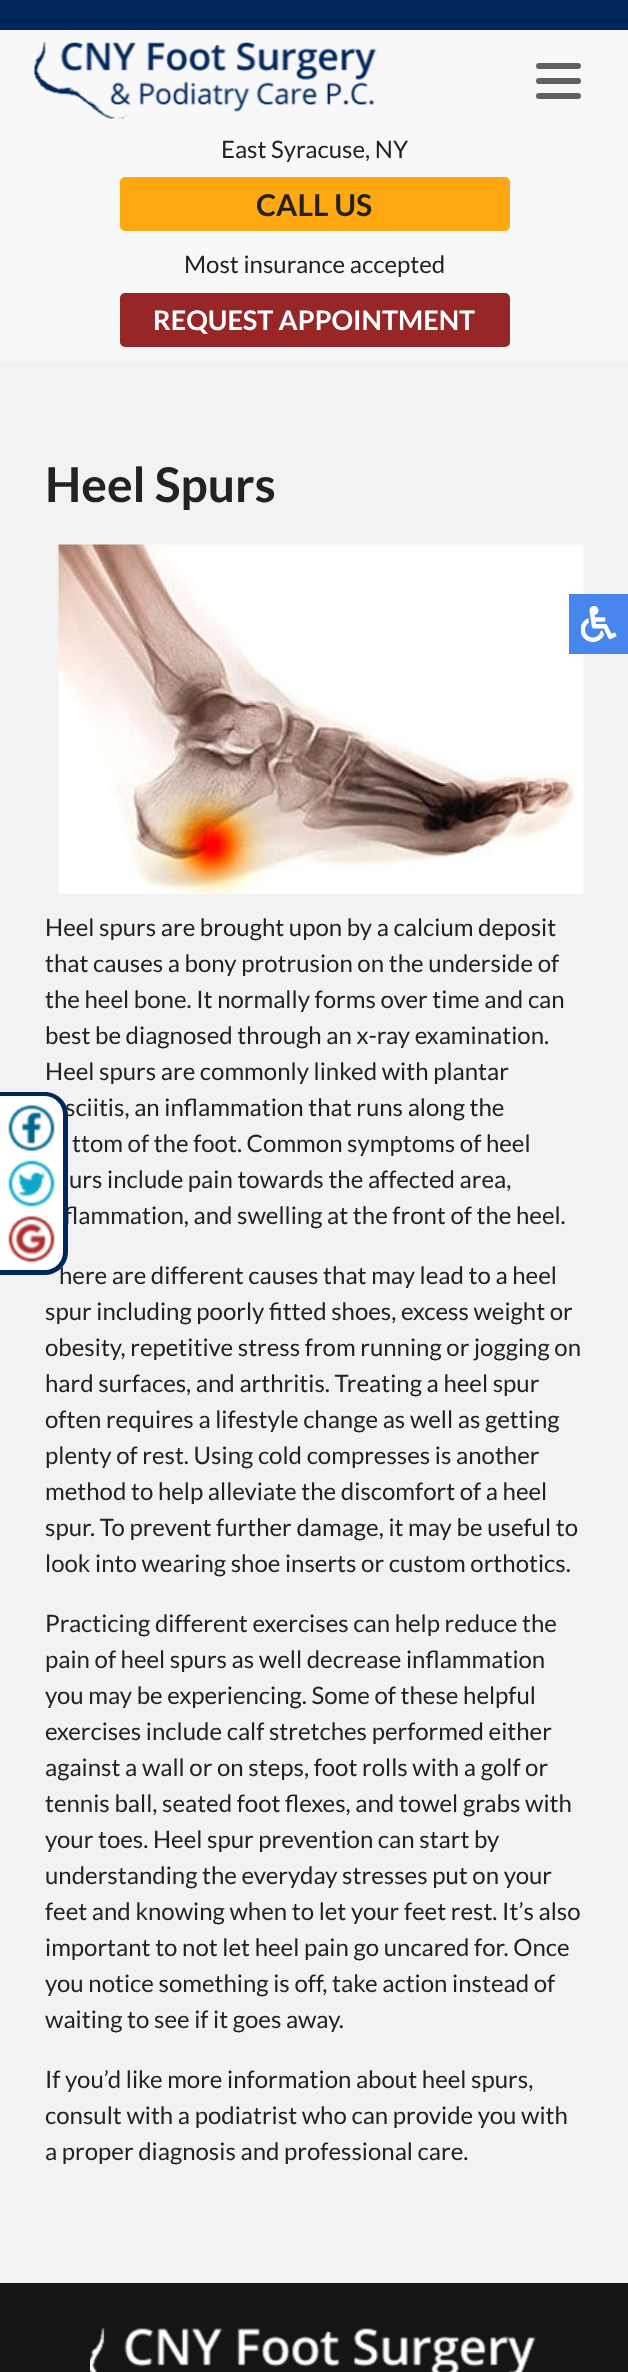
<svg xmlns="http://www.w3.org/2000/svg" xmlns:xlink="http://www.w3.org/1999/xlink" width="628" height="2372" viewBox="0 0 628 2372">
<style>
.cls-1{font:24px Lato;fill:#222222}
.cls-2{font:bold 30px Lato;fill:#222222}
.cls-3{font:bold 27px Lato;fill:#ffffff}
.cls-4{font:bold 48px Lato;fill:#222222}
</style>
<rect width="100%" height="100%" fill="#f2f2f2"/>
<rect fill="#f8f8f8" x="0" y="30" width="628" height="332"/>
<rect fill="#00275d" x="0" y="0" width="628" height="30"/>
<image xlink:href="image0.png" x="34" y="42" width="343" height="77"/>
<rect fill="#616161" x="536" y="63" width="45" height="6" rx="3"/>
<rect fill="#616161" x="536" y="78" width="45" height="6" rx="3"/>
<rect fill="#616161" x="536" y="93" width="45" height="6" rx="3"/>
<rect fill="#ffa811" stroke="#ffa811" stroke-width="2" x="121" y="178" width="388" height="52" rx="4"/>
<rect fill="#972626" stroke="#972626" stroke-width="2" x="121" y="294" width="388" height="52" rx="4"/>
<image xlink:href="image1.png" x="58" y="544" width="526" height="350"/>
<rect fill="#4885ed" x="569" y="594" width="59" height="60"/>
<image xlink:href="image2.png" x="581" y="606" width="36" height="36"/>
<rect fill="#151515" x="0" y="2283" width="628" height="89"/>
<image xlink:href="image6.png" x="90" y="2328" width="446" height="44"/>
<text class="cls-1" x="221" y="158">East Syracuse, NY</text>
<text class="cls-2" x="256" y="216">CALL US</text>
<text class="cls-1" x="184" y="273">Most insurance accepted</text>
<text class="cls-3" x="153" y="330">REQUEST APPOINTMENT</text>
<text class="cls-4" x="45" y="502">Heel Spurs</text>
<text class="cls-1"><tspan x="45" y="936">Heel spurs are brought upon by a calcium deposit</tspan><tspan x="45" y="972">that causes a bony protrusion on the underside of</tspan><tspan x="45" y="1008">the heel bone. It normally forms over time and can</tspan><tspan x="45" y="1044">best be diagnosed through an x-ray examination.</tspan><tspan x="45" y="1080">Heel spurs are commonly linked with plantar</tspan></text>
<text class="cls-1" x="65" y="1116">sciitis, an inflammation that runs along the</text>
<text class="cls-1" x="72" y="1152">ttom of the foot. Common symptoms of heel</text>
<text class="cls-1" x="69" y="1188">urs include pain towards the affected area,</text>
<text class="cls-1" x="64" y="1224">flammation, and swelling at the front of the heel.</text>
<text class="cls-1" x="59" y="1284">here are different causes that may lead to a heel</text>
<text class="cls-1"><tspan x="45" y="1320">spur including poorly fitted shoes, excess weight or</tspan><tspan x="45" y="1356">obesity, repetitive stress from running or jogging on</tspan><tspan x="45" y="1392">hard surfaces, and arthritis. Treating a heel spur</tspan><tspan x="45" y="1428">often requires a lifestyle change as well as getting</tspan><tspan x="45" y="1464">plenty of rest. Using cold compresses is another</tspan><tspan x="45" y="1500">method to help alleviate the discomfort of a heel</tspan><tspan x="45" y="1536">spur. To prevent further damage, it may be useful to</tspan><tspan x="45" y="1572">look into wearing shoe inserts or custom orthotics.</tspan></text>
<text class="cls-1"><tspan x="45" y="1632">Practicing different exercises can help reduce the</tspan><tspan x="45" y="1668">pain of heel spurs as well decrease inflammation</tspan><tspan x="45" y="1704">you may be experiencing. Some of these helpful</tspan><tspan x="45" y="1740">exercises include calf stretches performed either</tspan><tspan x="45" y="1776">against a wall or on steps, foot rolls with a golf or</tspan><tspan x="45" y="1812">tennis ball, seated foot flexes, and towel grabs with</tspan><tspan x="45" y="1848">your toes. Heel spur prevention can start by</tspan><tspan x="45" y="1884">understanding the everyday stresses put on your</tspan><tspan x="45" y="1920">feet and knowing when to let your feet rest. It’s also</tspan><tspan x="45" y="1956">important to not let heel pain go uncared for. Once</tspan><tspan x="45" y="1992">you notice something is off, take action instead of</tspan><tspan x="45" y="2028">waiting to see if it goes away.</tspan></text>
<text class="cls-1"><tspan x="45" y="2088">If you’d like more information about heel spurs,</tspan><tspan x="45" y="2124">consult with a podiatrist who can provide you with</tspan><tspan x="45" y="2160">a proper diagnosis and professional care.</tspan></text>
<path fill="#ffffff" d="M0 1092H45C57.5 1092 68 1102.5 68 1115V1252C68 1264.5 57.5 1275 45 1275H0Z"/>
<path fill="#00275d" fill-rule="evenodd" d="M0 1092H45C57 1092 68 1102 68 1114V1252C68 1265 57 1275 45 1275H0ZM0 1096H45C55 1096 63 1105 63 1114V1252C63 1262 55 1270 45 1270H0Z"/>
<image xlink:href="image3.png" x="8" y="1104" width="47" height="48"/>
<image xlink:href="image4.png" x="8" y="1160" width="47" height="47"/>
<image xlink:href="image5.png" x="8" y="1215" width="47" height="48"/>
</svg>
